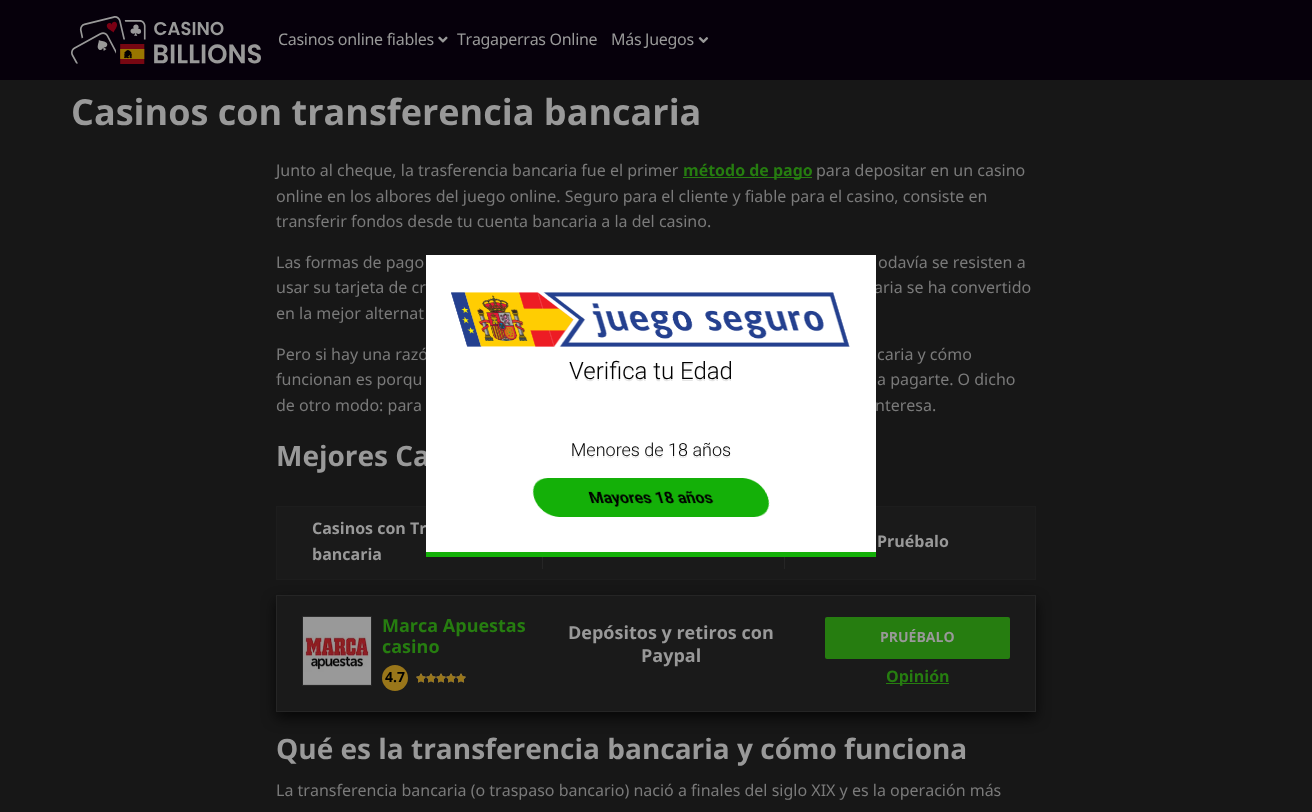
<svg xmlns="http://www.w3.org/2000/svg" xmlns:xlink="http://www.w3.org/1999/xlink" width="1312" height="812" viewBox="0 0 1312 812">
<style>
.cls-1{font:16px Noto Sans Thai;letter-spacing:-0.3px;fill:#999999}
.cls-2{font:bold 36px Noto Sans Thai;fill:#999999}
.cls-3{font:16px Noto Sans Thai;fill:#7a7a7a}
.cls-4{font:bold 16px Noto Sans Thai;fill:#267d10}
.cls-5{font:bold 28px Noto Sans Thai;fill:#999999}
.cls-6{font:bold 16px Noto Sans Thai;fill:#999999}
.cls-7{font:bold 18px Noto Sans Thai;fill:#267d10}
.cls-8{font:bold 14px Noto Sans Thai;fill:#000000}
.cls-9{font:bold 18px Noto Sans Thai;fill:#999999}
.cls-10{font:bold 14px Noto Sans Thai;fill:#999999}
</style>
<rect width="100%" height="100%" fill="#171717"/>
<rect fill="#06000b" x="0" y="0" width="1312" height="80"/>
<image xlink:href="image0.png" x="71" y="16" width="190" height="48"/>
<image xlink:href="image1.png" x="438" y="36" width="10" height="7"/>
<image xlink:href="image2.png" x="698" y="37" width="11" height="6"/>
<rect fill="#267d10" x="683" y="177" width="129" height="1"/>
<rect fill="#1a1a1a" stroke="#1d1d1d" x="276.5" y="506.5" width="759" height="73"/>
<rect fill="#252525" x="542" y="557" width="1" height="12"/>
<rect fill="#252525" x="784" y="557" width="1" height="12"/>
<rect fill="#000000" fill-opacity="0.7" filter="blur(7px)" x="276" y="601" width="760" height="117"/>
<rect fill="#1a1a1a" stroke="#252525" x="276.5" y="595.5" width="759" height="116"/>
<rect fill="none" stroke="#252525" x="302.5" y="616.5" width="69" height="69"/>
<image xlink:href="image3.png" x="303" y="616" width="68" height="69"/>
<circle fill="#99761a" cx="395" cy="678" r="13"/>
<image xlink:href="image4.png" x="416" y="673" width="10" height="10"/>
<image xlink:href="image4.png" x="426" y="673" width="10" height="10"/>
<image xlink:href="image4.png" x="436" y="673" width="10" height="10"/>
<image xlink:href="image4.png" x="446" y="673" width="10" height="10"/>
<image xlink:href="image4.png" x="456" y="673" width="10" height="10"/>
<image xlink:href="image5.png" x="416" y="673" width="10" height="10"/>
<image xlink:href="image5.png" x="426" y="673" width="10" height="10"/>
<image xlink:href="image5.png" x="436" y="673" width="10" height="10"/>
<image xlink:href="image5.png" x="446" y="673" width="10" height="10"/>
<image xlink:href="image5.png" x="456" y="673" width="10" height="10"/>
<rect fill="#267d10" x="825" y="617" width="185" height="42" rx="2"/>
<rect fill="#267d10" x="886" y="683" width="63" height="1"/>
<text class="cls-1" x="278" y="45">Casinos online fiables</text>
<text class="cls-1" x="457" y="45">Tragaperras Online</text>
<text class="cls-1" x="611" y="45">Más Juegos</text>
<text class="cls-2" x="71" y="125">Casinos con transferencia bancaria</text>
<text class="cls-3" x="276" y="176">Junto al cheque, la trasferencia bancaria fue el primer</text>
<text class="cls-4" x="683" y="176">método de pago</text>
<text class="cls-3" x="816" y="176">para depositar en un casino</text>
<text class="cls-3"><tspan x="276" y="202">online en los albores del juego online. Seguro para el cliente y fiable para el casino, consiste en</tspan><tspan x="276" y="227">transferir fondos desde tu cuenta bancaria a la del casino.</tspan></text>
<text class="cls-3" x="276" y="268">Las formas de pago</text>
<text class="cls-3" x="878" y="268">odavía se resisten a</text>
<text class="cls-3" x="276" y="293">usar su tarjeta de cr</text>
<text class="cls-3" x="874" y="293">aria se ha convertido</text>
<text class="cls-3" x="276" y="319">en la mejor alternat</text>
<text class="cls-3" x="276" y="360">Pero si hay una razó</text>
<text class="cls-3" x="877" y="360">caria y cómo</text>
<text class="cls-3" x="276" y="385">funcionan es porqu</text>
<text class="cls-3" x="877" y="385">a pagarte. O dicho</text>
<text class="cls-3" x="276" y="411">de otro modo: para</text>
<text class="cls-3" x="875" y="411">nteresa.</text>
<text class="cls-5" x="276" y="466">Mejores Ca</text>
<text class="cls-6"><tspan x="312" y="534">Casinos con Tr</tspan><tspan x="312" y="560">bancaria</tspan></text>
<text class="cls-6" x="877" y="547">Pruébalo</text>
<text class="cls-7"><tspan x="382" y="632">Marca Apuestas</tspan><tspan x="382" y="653">casino</tspan></text>
<text class="cls-8" x="385" y="682">4.7</text>
<text class="cls-9" x="568" y="639">Depósitos y retiros con</text>
<text class="cls-9" x="641" y="662">Paypal</text>
<text class="cls-10" x="880" y="642">PRUÉBALO</text>
<text class="cls-4" x="886" y="682">Opinión</text>
<text class="cls-5" x="276" y="759">Qué es la transferencia bancaria y cómo funciona</text>
<text class="cls-3" x="276" y="796">La transferencia bancaria (o traspaso bancario) nació a finales del siglo XIX y es la operación más</text>
<image xlink:href="image6.png" x="426" y="255" width="450" height="302"/>
</svg>
